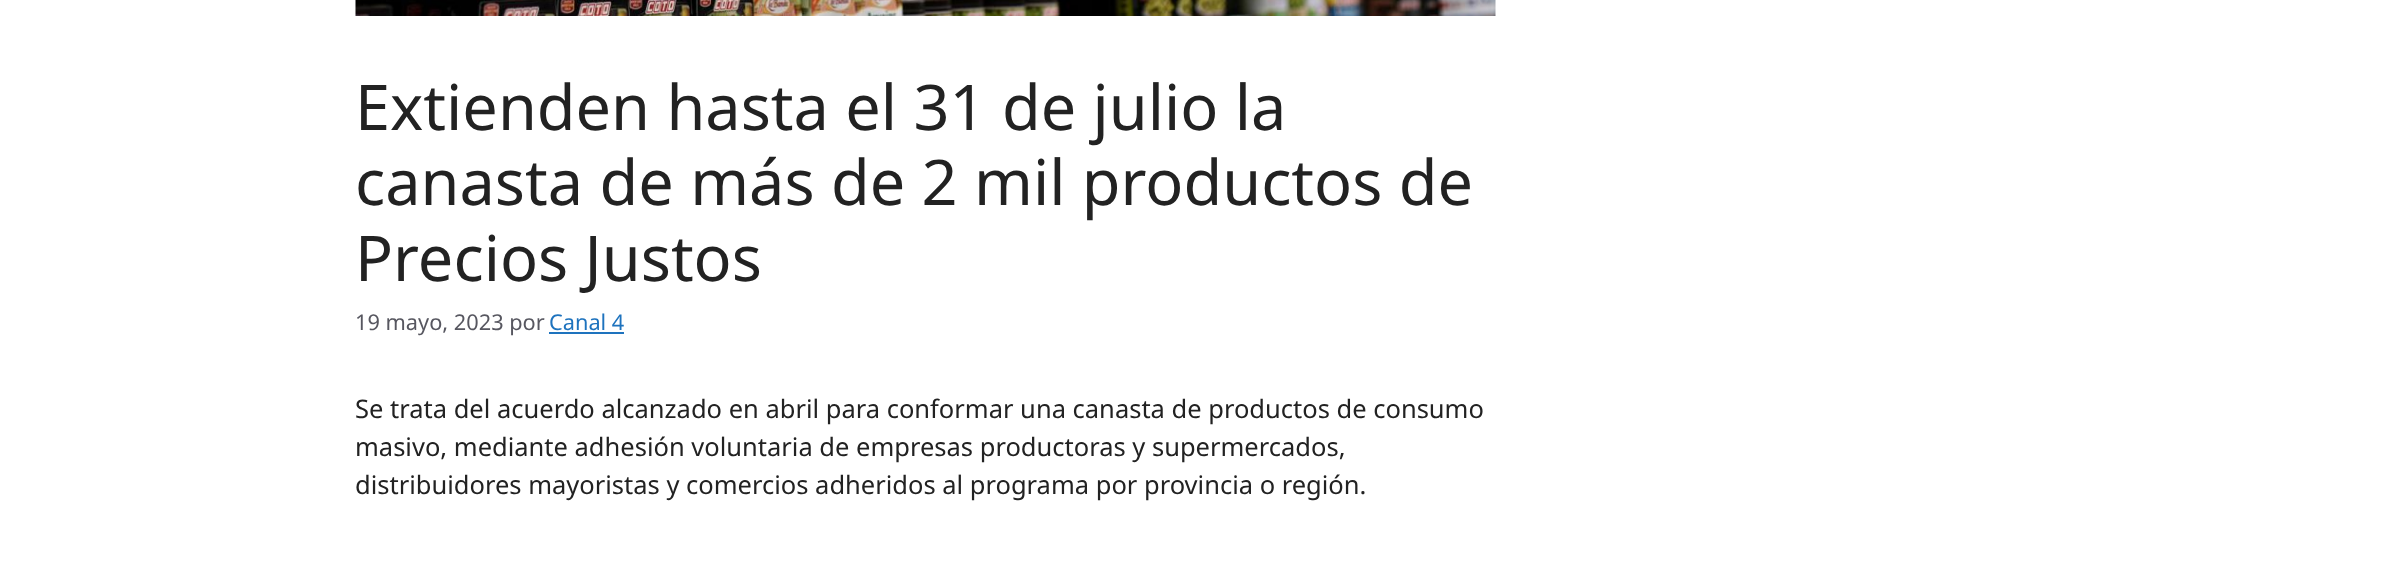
<svg xmlns="http://www.w3.org/2000/svg" xmlns:xlink="http://www.w3.org/1999/xlink" width="2389" height="563" viewBox="0 0 2389 563">
<style>
.cls-1{font:63px Noto Sans;fill:#222222}
.cls-2{font:21.75px Noto Sans;fill:#575760}
.cls-3{font:21.75px Noto Sans;fill:#1e73be}
.cls-4{font:25.5px Noto Sans;fill:#222222}
</style>
<rect width="100%" height="100%" fill="#ffffff"/>
<image xlink:href="image0.png" x="355" y="0" width="1141" height="16"/>
<rect fill="#1e73be" x="549" y="332" width="75" height="2"/>
<text class="cls-1"><tspan x="355" y="130">Extienden hasta el 31 de julio la</tspan><tspan x="355" y="205">canasta de más de 2 mil productos de</tspan><tspan x="355" y="281">Precios Justos</tspan></text>
<text class="cls-2" x="355" y="330">19 mayo, 2023 por</text>
<text class="cls-3" x="549" y="330">Canal 4</text>
<text class="cls-4"><tspan x="355" y="418">Se trata del acuerdo alcanzado en abril para conformar una canasta de productos de consumo</tspan><tspan x="355" y="456">masivo, mediante adhesión voluntaria de empresas productoras y supermercados,</tspan><tspan x="355" y="494">distribuidores mayoristas y comercios adheridos al programa por provincia o región.</tspan></text>
</svg>
